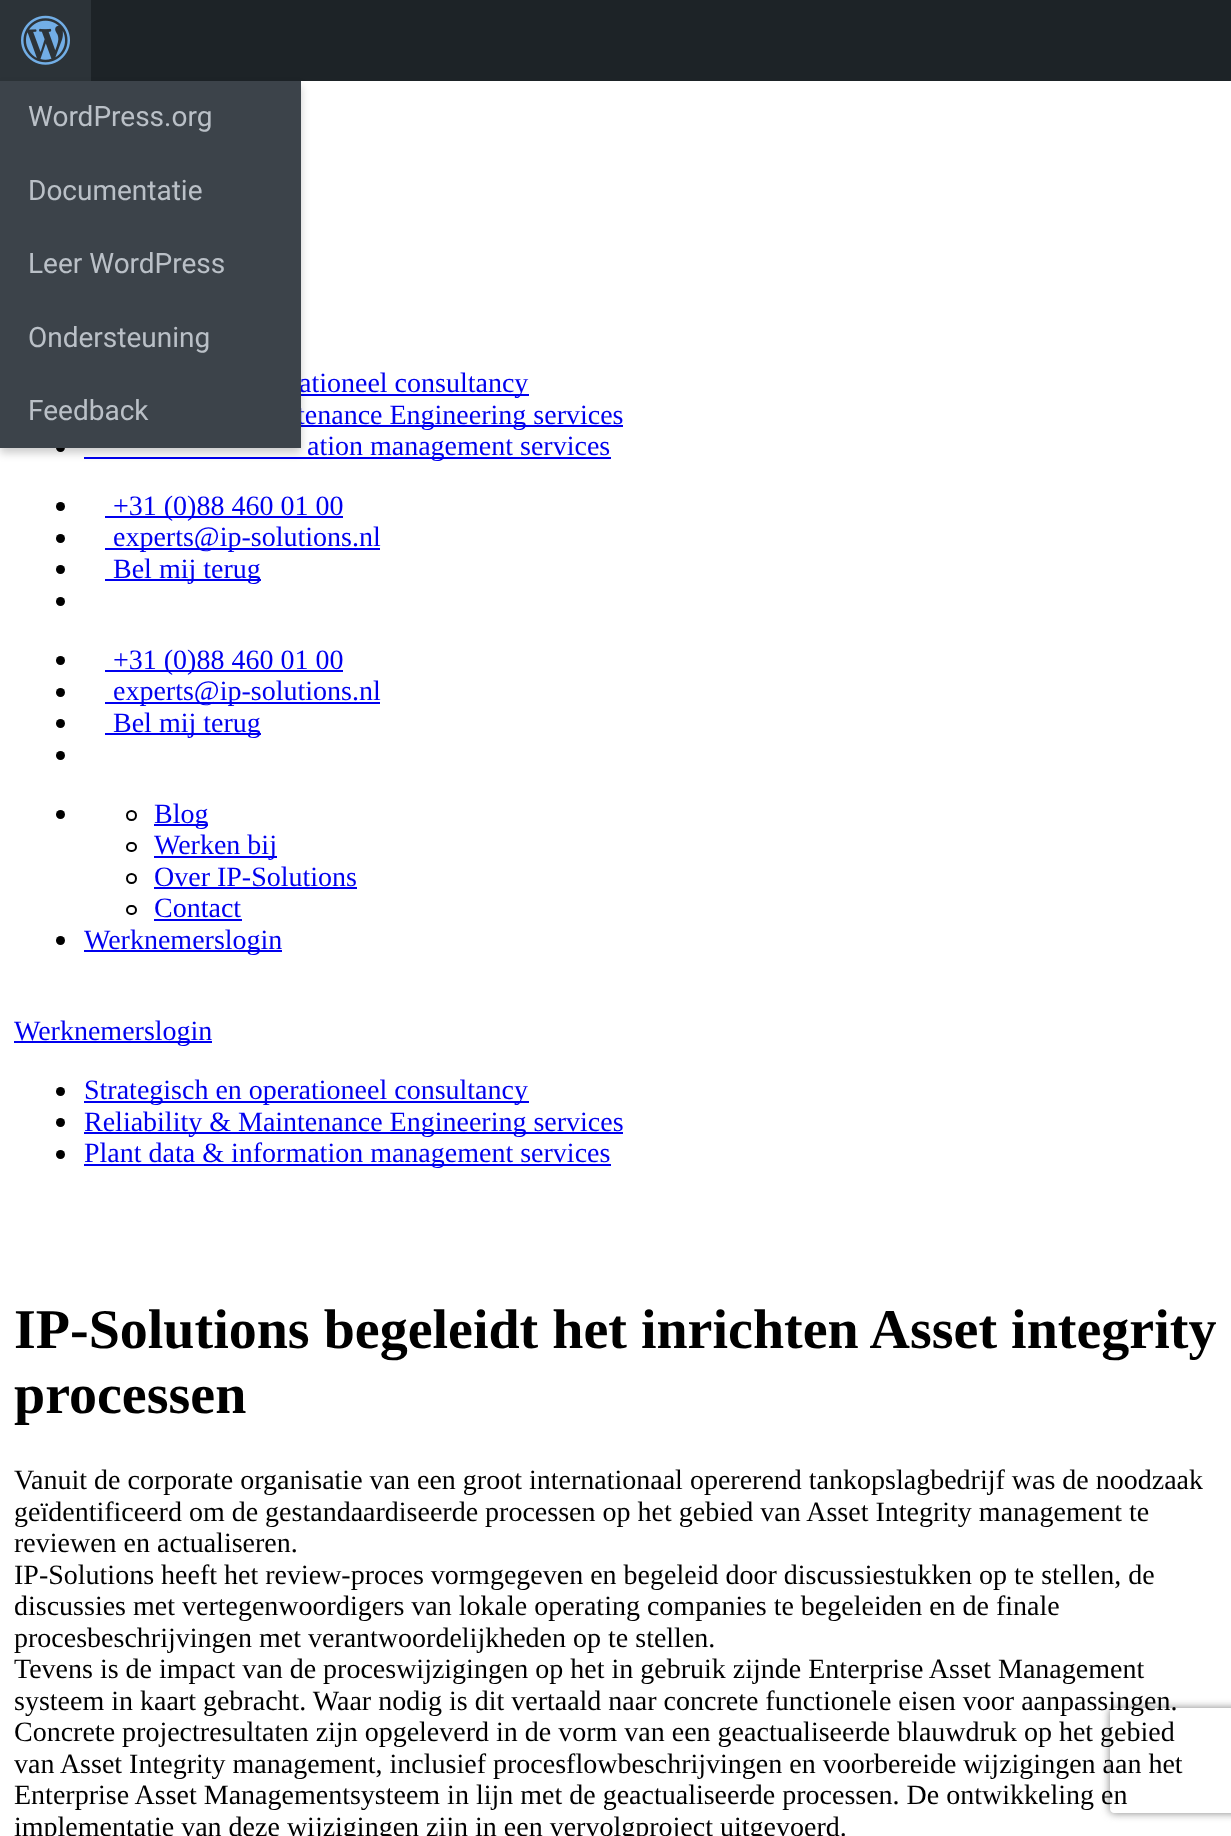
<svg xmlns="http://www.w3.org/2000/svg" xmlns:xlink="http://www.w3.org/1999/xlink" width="1231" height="1836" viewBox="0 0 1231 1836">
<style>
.cls-1{font:28px Liberation Serif;fill:#0000ee}
.cls-2{font:28px Roboto;fill:#bac0c7}
.cls-3{font:bold 56px Liberation Serif;fill:#000000}
.cls-4{font:28px Liberation Serif;fill:#000000}
</style>
<defs>
<clipPath id="clip1"><path d="M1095 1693H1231V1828H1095ZM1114 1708H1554C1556 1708 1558 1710 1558 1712V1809C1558 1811 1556 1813 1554 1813H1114C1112 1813 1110 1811 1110 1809V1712C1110 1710 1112 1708 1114 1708Z" clip-rule="evenodd"/></clipPath>
</defs>
<rect width="100%" height="100%" fill="#ffffff"/>
<rect fill="#1d2327" x="91" y="0" width="1140" height="81"/>
<rect fill="#2c3338" x="0" y="0" width="91" height="81"/>
<image xlink:href="image0.png" x="21" y="15" width="49" height="50"/>
<rect fill="#0000ee" x="301" y="394" width="228" height="2"/>
<rect fill="#0000ee" x="301" y="425" width="322" height="2"/>
<circle fill="#000000" cx="60.5" cy="447.5" r="4.5"/>
<rect fill="#0000ee" x="84" y="457" width="527" height="2"/>
<rect fill="#000000" fill-opacity="0.2" filter="blur(4.5px)" x="0" y="86" width="301" height="367"/>
<circle fill="#000000" cx="60.5" cy="506.5" r="4.5"/>
<rect fill="#0000ee" x="105" y="516" width="238" height="2"/>
<circle fill="#000000" cx="60.5" cy="538.5" r="4.5"/>
<rect fill="#0000ee" x="105" y="548" width="275" height="2"/>
<circle fill="#000000" cx="60.5" cy="569.5" r="4.5"/>
<rect fill="#0000ee" x="105" y="579" width="156" height="2"/>
<circle fill="#000000" cx="60.5" cy="601.5" r="4.5"/>
<circle fill="#000000" cx="60.5" cy="660.5" r="4.5"/>
<rect fill="#0000ee" x="105" y="670" width="238" height="2"/>
<circle fill="#000000" cx="60.5" cy="692.5" r="4.5"/>
<rect fill="#0000ee" x="105" y="702" width="275" height="2"/>
<circle fill="#000000" cx="60.5" cy="723.5" r="4.5"/>
<rect fill="#0000ee" x="105" y="733" width="156" height="2"/>
<circle fill="#000000" cx="60.5" cy="755.5" r="4.5"/>
<circle fill="#000000" cx="60.5" cy="814.5" r="4.5"/>
<circle fill="none" stroke="#000000" stroke-width="2" cx="131.5" cy="815.5" r="4.5"/>
<rect fill="#0000ee" x="154" y="824" width="54" height="2"/>
<rect fill="none" stroke="#000000" stroke-width="2" x="127" y="843" width="9" height="8" rx="4"/>
<rect fill="#0000ee" x="154" y="856" width="123" height="2"/>
<circle fill="none" stroke="#000000" stroke-width="2" cx="131.5" cy="878.5" r="4.5"/>
<rect fill="#0000ee" x="154" y="887" width="203" height="2"/>
<rect fill="none" stroke="#000000" stroke-width="2" x="127" y="906" width="9" height="8" rx="4"/>
<rect fill="#0000ee" x="154" y="919" width="88" height="2"/>
<circle fill="#000000" cx="60.5" cy="940.5" r="4.5"/>
<rect fill="#0000ee" x="84" y="950" width="198" height="2"/>
<rect fill="#0000ee" x="14" y="1041" width="198" height="2"/>
<circle fill="#000000" cx="60.5" cy="1091.5" r="4.5"/>
<rect fill="#0000ee" x="84" y="1101" width="445" height="2"/>
<circle fill="#000000" cx="60.5" cy="1122.5" r="4.5"/>
<rect fill="#0000ee" x="84" y="1132" width="539" height="2"/>
<circle fill="#000000" cx="60.5" cy="1154.5" r="4.5"/>
<rect fill="#0000ee" x="84" y="1164" width="527" height="2"/>
<g clip-path="url(#clip1)">
<rect fill="#808080" filter="blur(4.5px)" x="1110" y="1708" width="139" height="105" rx="4"/>
</g>
<text class="cls-1" x="299" y="392">ationeel consultancy</text>
<text class="cls-1" x="297" y="424">tenance Engineering services</text>
<rect fill="#3c434a" x="0" y="81" width="301" height="367"/>
<text class="cls-2" x="28" y="420">Feedback</text>
<text class="cls-2" x="28" y="347">Ondersteuning</text>
<text class="cls-2" x="28" y="273">Leer WordPress</text>
<text class="cls-2" x="28" y="200">Documentatie</text>
<text class="cls-2" x="28" y="126">WordPress.org</text>
<text class="cls-1" x="307" y="455">ation management services</text>
<text class="cls-1"><tspan x="113" y="515">+31 (0)88 460 01 00</tspan><tspan x="113" y="546">experts@ip-solutions.nl</tspan><tspan x="113" y="578">Bel mij terug</tspan></text>
<text class="cls-1"><tspan x="113" y="669">+31 (0)88 460 01 00</tspan><tspan x="113" y="700">experts@ip-solutions.nl</tspan><tspan x="113" y="732">Bel mij terug</tspan></text>
<text class="cls-1"><tspan x="154" y="823">Blog</tspan><tspan x="154" y="854">Werken bij</tspan><tspan x="154" y="886">Over IP-Solutions</tspan><tspan x="154" y="917">Contact</tspan></text>
<text class="cls-1" x="84" y="949">Werknemerslogin</text>
<text class="cls-1" x="14" y="1040">Werknemerslogin</text>
<text class="cls-1"><tspan x="84" y="1099">Strategisch en operationeel consultancy</tspan><tspan x="84" y="1131">Reliability &amp; Maintenance Engineering services</tspan><tspan x="84" y="1162">Plant data &amp; information management services</tspan></text>
<text class="cls-3"><tspan x="14" y="1348">IP-Solutions begeleidt het inrichten Asset integrity</tspan><tspan x="14" y="1413">processen</tspan></text>
<text class="cls-4"><tspan x="14" y="1489">Vanuit de corporate organisatie van een groot internationaal opererend tankopslagbedrijf was de noodzaak</tspan><tspan x="14" y="1521">geïdentificeerd om de gestandaardiseerde processen op het gebied van Asset Integrity management te</tspan><tspan x="14" y="1552">reviewen en actualiseren.</tspan><tspan x="14" y="1584">IP-Solutions heeft het review-proces vormgegeven en begeleid door discussiestukken op te stellen, de</tspan><tspan x="14" y="1615">discussies met vertegenwoordigers van lokale operating companies te begeleiden en de finale</tspan><tspan x="14" y="1647">procesbeschrijvingen met verantwoordelijkheden op te stellen.</tspan><tspan x="14" y="1678">Tevens is de impact van de proceswijzigingen op het in gebruik zijnde Enterprise Asset Management</tspan><tspan x="14" y="1710">systeem in kaart gebracht. Waar nodig is dit vertaald naar concrete functionele eisen voor aanpassingen.</tspan><tspan x="14" y="1741">Concrete projectresultaten zijn opgeleverd in de vorm van een geactualiseerde blauwdruk op het gebied</tspan><tspan x="14" y="1773">van Asset Integrity management, inclusief procesflowbeschrijvingen en voorbereide wijzigingen aan het</tspan><tspan x="14" y="1804">Enterprise Asset Managementsysteem in lijn met de geactualiseerde processen. De ontwikkeling en</tspan><tspan x="14" y="1836">implementatie van deze wijzigingen zijn in een vervolgproject uitgevoerd.</tspan></text>
</svg>
